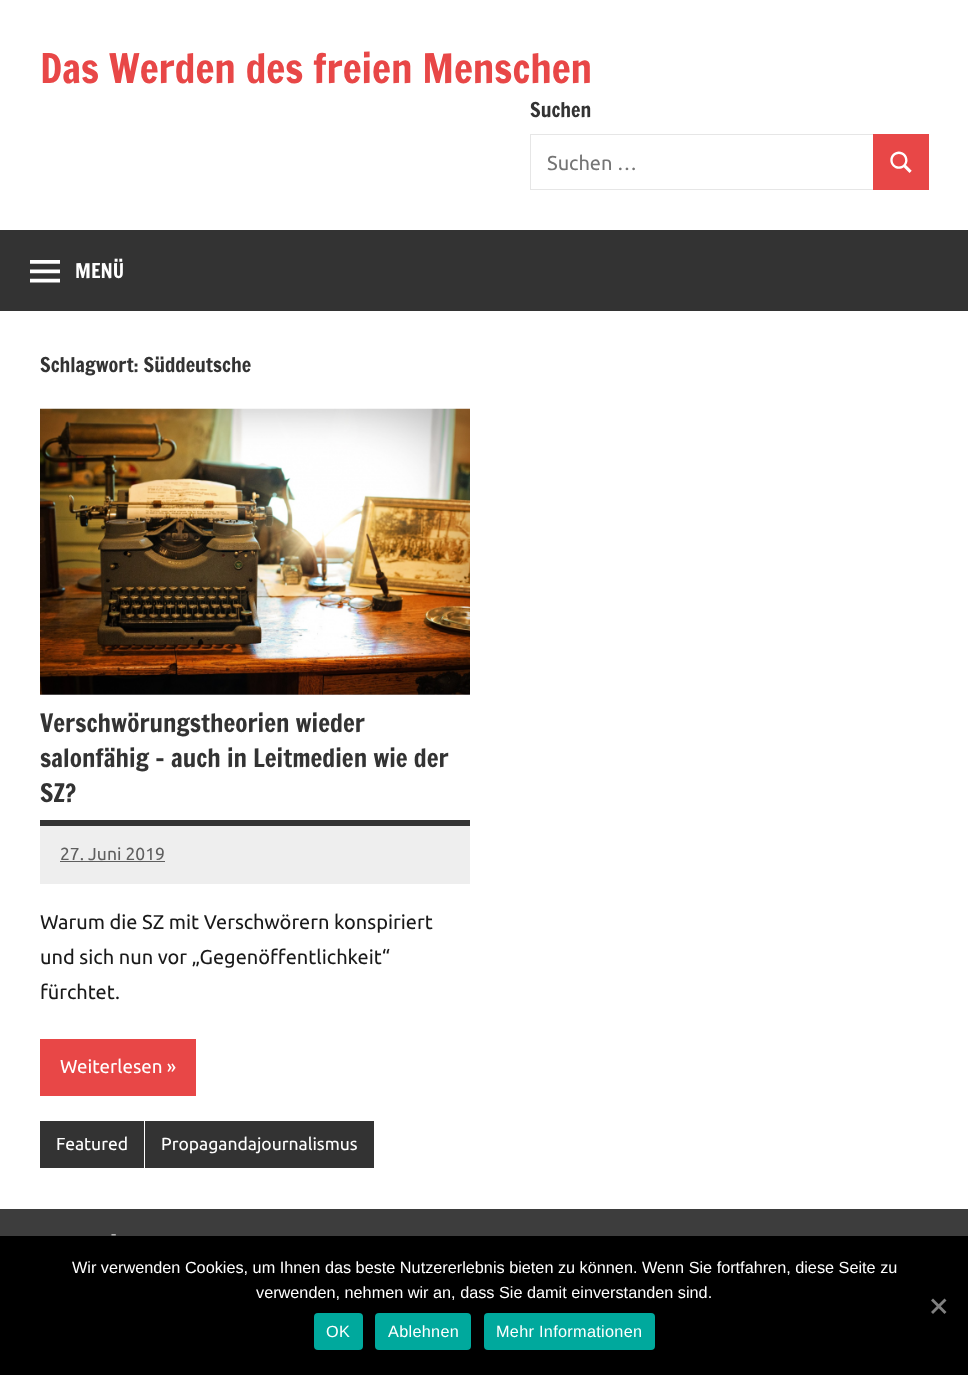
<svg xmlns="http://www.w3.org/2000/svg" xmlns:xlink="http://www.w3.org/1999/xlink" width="968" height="1375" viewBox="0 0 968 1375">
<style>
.cls-1{font:40px Francois One;fill:#e84747}
.cls-2{font:20px Francois One;fill:#333333}
.cls-3{font:20px Ubuntu;fill:#757575}
.cls-4{font:20px Francois One;fill:#ffffff}
.cls-5{font:25px Francois One;fill:#333333}
.cls-6{font:17.5px Ubuntu;fill:#5f5f5f}
.cls-7{font:20px Ubuntu;fill:#1a1a1a}
.cls-8{font:18.75px Ubuntu;fill:#ffffff}
.cls-9{font:17.5px Ubuntu;fill:#ffffff}
.cls-10{font:17.5px Ubuntu;fill:#b1b1b1}
.cls-11{font:16.25px Liberation Sans;fill:#ffffff}
.cls-12{font:16.25px Liberation Sans;letter-spacing:0.3px;fill:#ffffff}
</style>
<rect width="100%" height="100%" fill="#ffffff"/>
<rect fill="none" stroke="#e6e6e6" x="530.5" y="134.5" width="343" height="55"/>
<rect fill="#e84747" x="873" y="134" width="56" height="56"/>
<image xlink:href="image0.png" x="890" y="151" width="22" height="22"/>
<rect fill="#333333" x="0" y="230" width="968" height="81"/>
<image xlink:href="image1.png" x="30" y="260" width="30" height="23"/>
<image xlink:href="image2.png" x="40" y="408" width="430" height="287"/>
<rect fill="#333333" x="40" y="820" width="430" height="6"/>
<rect fill="#eeeeee" x="40" y="826" width="430" height="58"/>
<rect fill="#5f5f5f" x="60" y="861" width="105" height="1"/>
<rect fill="#e84747" x="40" y="1039" width="156" height="57"/>
<rect fill="#333333" x="40" y="1121" width="104" height="47"/>
<rect fill="#333333" x="145" y="1121" width="229" height="47"/>
<rect fill="#3d3d3d" x="0" y="1209" width="968" height="27"/>
<rect fill="#000000" x="0" y="1236" width="968" height="139"/>
<path fill="#808080" d="M944.5 1298.5L946.5 1300.5L933 1314L931 1312Z"/>
<path fill="#808080" d="M931 1300.5L933 1298.5L946.5 1312L944.5 1314Z"/>
<rect fill="#00a99d" x="314" y="1313" width="49" height="37" rx="4"/>
<rect fill="#00a99d" x="375" y="1313" width="96" height="37" rx="4"/>
<rect fill="#00a99d" x="484" y="1313" width="171" height="37" rx="4"/>
<text class="cls-1" x="40" y="83">Das Werden des freien Menschen</text>
<text class="cls-2" x="530" y="117">Suchen</text>
<text class="cls-3" x="547" y="170">Suchen …</text>
<text class="cls-4" x="75" y="278">MENÜ</text>
<text class="cls-2" x="40" y="372">Schlagwort: Süddeutsche</text>
<text class="cls-5"><tspan x="40" y="732">Verschwörungstheorien wieder</tspan><tspan x="40" y="767">salonfähig – auch in Leitmedien wie der</tspan><tspan x="40" y="802">SZ?</tspan></text>
<text class="cls-6" x="60" y="860">27. Juni 2019</text>
<text class="cls-7"><tspan x="40" y="929">Warum die SZ mit Verschwörern konspiriert</tspan><tspan x="40" y="964">und sich nun vor „Gegenöffentlichkeit“</tspan><tspan x="40" y="999">fürchtet.</tspan></text>
<text class="cls-8" x="60" y="1073">Weiterlesen »</text>
<text class="cls-9" x="56" y="1150">Featured</text>
<text class="cls-9" x="161" y="1150">Propagandajournalismus</text>
<text class="cls-10" x="111" y="1240">-</text>
<text class="cls-11" x="72" y="1273">Wir verwenden Cookies, um Ihnen das beste Nutzererlebnis bieten zu können. Wenn Sie fortfahren, diese Seite zu</text>
<text class="cls-11" x="256" y="1298">verwenden, nehmen wir an, dass Sie damit einverstanden sind.</text>
<text class="cls-12" x="326" y="1337">OK</text>
<text class="cls-12" x="388" y="1337">Ablehnen</text>
<text class="cls-12" x="496" y="1337">Mehr Informationen</text>
</svg>
